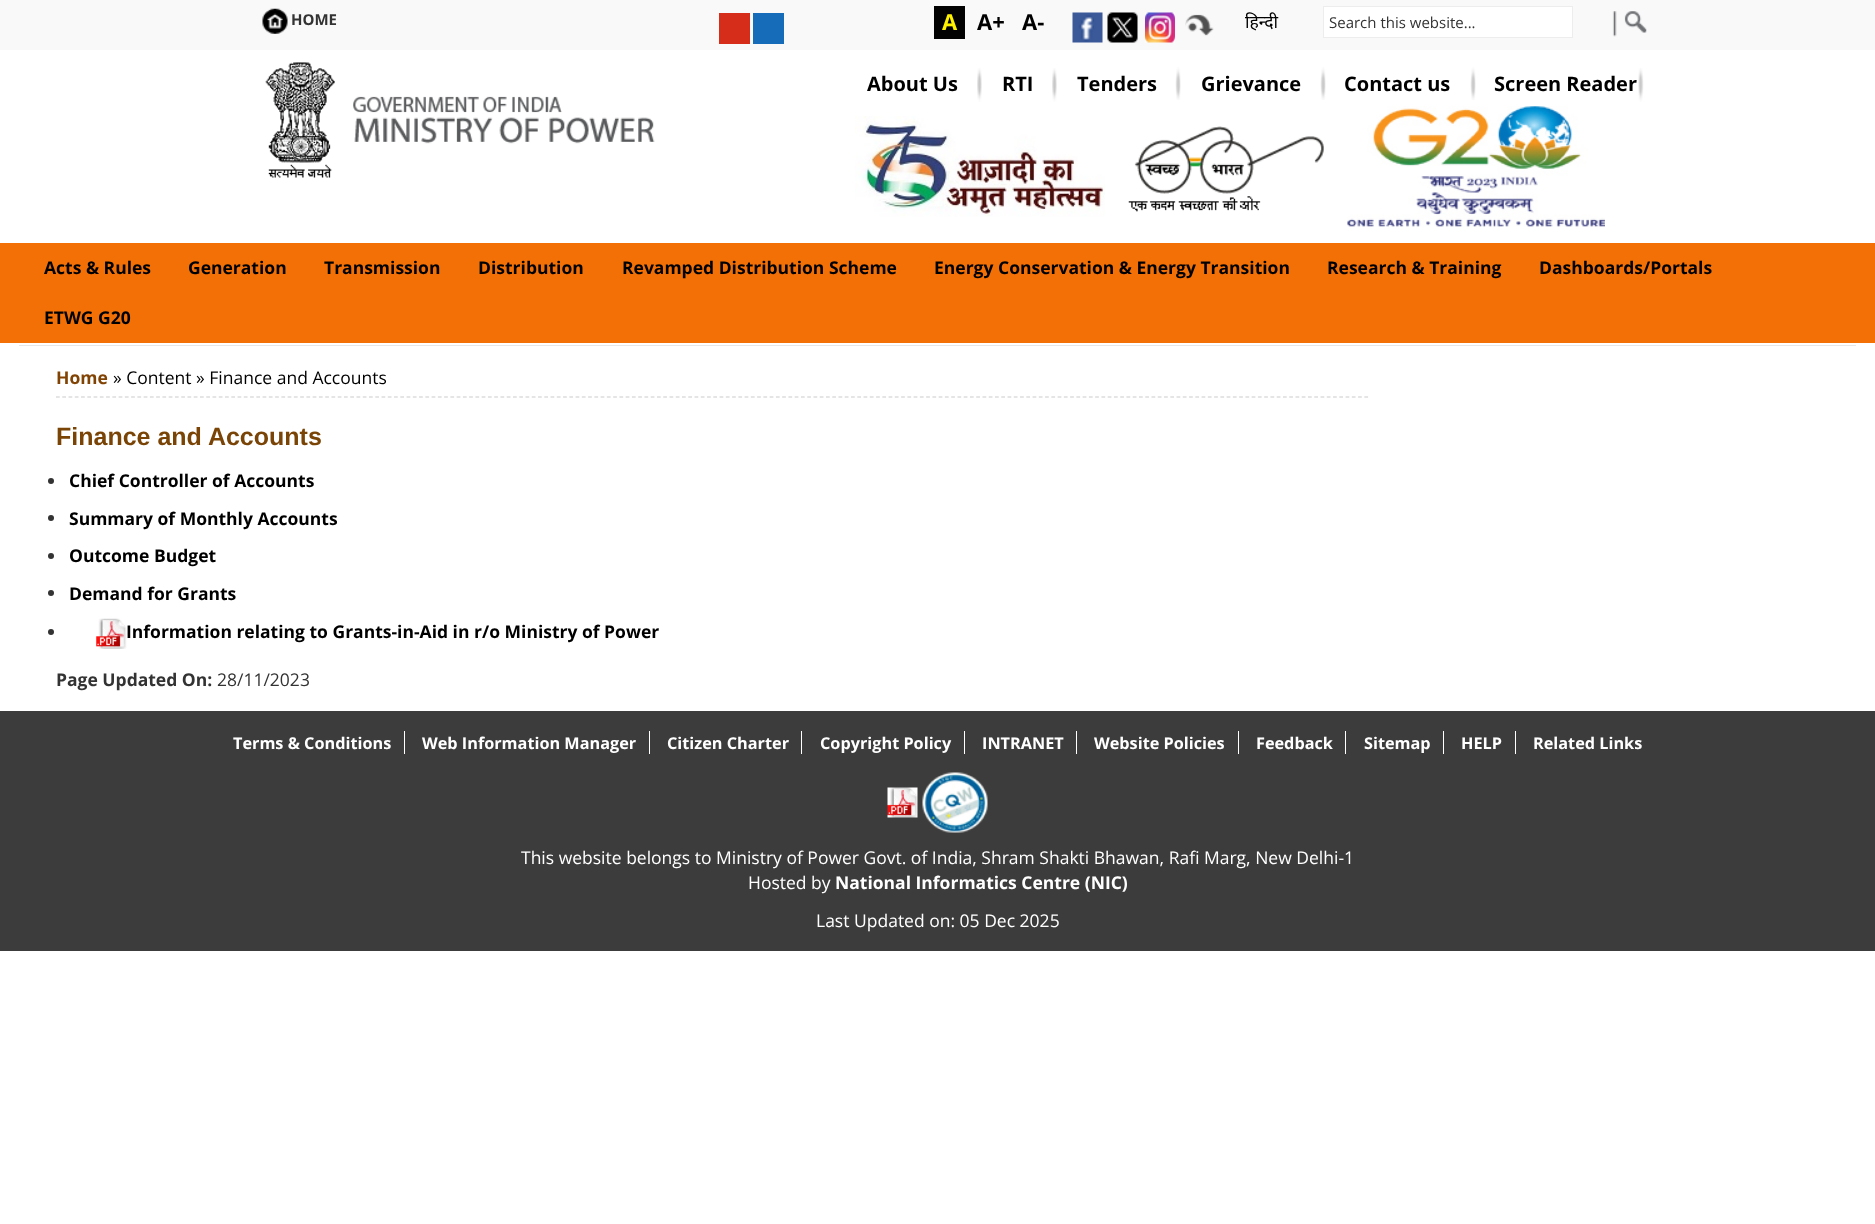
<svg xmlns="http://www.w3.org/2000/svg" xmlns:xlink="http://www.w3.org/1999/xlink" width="1875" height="1224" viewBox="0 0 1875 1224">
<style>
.cls-1{font:bold 15px Open Sans;fill:#333333}
.cls-2{font:bold 22px Open Sans;fill:#fff200}
.cls-3{font:bold 22px Open Sans;fill:#000000}
.cls-4{font:17.5px Noto Sans;fill:#000000}
.cls-5{font:15px Open Sans;fill:#333333}
.cls-6{font:bold 20px Open Sans;fill:#000000}
.cls-7{font:bold 17.5px Open Sans;fill:#000000}
.cls-8{font:bold 17.5px Open Sans;fill:#814303}
.cls-9{font:17.5px Open Sans;fill:#000000}
.cls-10{font:bold 25px Liberation Sans;fill:#7a4406}
.cls-11{font:bold 17.5px Open Sans;fill:#333333}
.cls-12{font:17.5px Open Sans;fill:#333333}
.cls-13{font:bold 16.25px Open Sans;fill:#ffffff}
.cls-14{font:17.5px Open Sans;fill:#ffffff}
.cls-15{font:bold 17.5px Open Sans;fill:#ffffff}
</style>
<rect width="100%" height="100%" fill="#ffffff"/>
<rect fill="#f9f9fa" x="0" y="0" width="1875" height="50"/>
<image xlink:href="image0.png" x="262" y="8" width="26" height="26"/>
<rect fill="#d52d1a" x="719" y="13" width="31" height="31"/>
<rect fill="#166cb9" x="753" y="13" width="31" height="31"/>
<rect fill="#020202" x="934" y="6" width="31" height="33"/>
<image xlink:href="image1.png" x="1072" y="12" width="31" height="31"/>
<image xlink:href="image2.png" x="1107" y="12" width="31" height="31"/>
<image xlink:href="image3.png" x="1145" y="12" width="30" height="31"/>
<image xlink:href="image4.png" x="1185" y="14" width="29" height="22"/>
<rect fill="#ffffff" stroke="#ededee" x="1323.5" y="6.5" width="249" height="31"/>
<image xlink:href="image5.png" x="1612" y="11" width="35" height="26"/>
<image xlink:href="image6.png" x="265" y="62" width="390" height="116"/>
<image xlink:href="image7.png" x="977" y="68" width="5" height="34"/>
<image xlink:href="image7.png" x="1052" y="68" width="5" height="34"/>
<image xlink:href="image8.png" x="1175" y="67" width="6" height="33"/>
<image xlink:href="image9.png" x="1320" y="67" width="6" height="33"/>
<image xlink:href="image9.png" x="1470" y="67" width="6" height="33"/>
<image xlink:href="image10.png" x="1638" y="68" width="6" height="34"/>
<image xlink:href="image11.png" x="855" y="116" width="250" height="101"/>
<image xlink:href="image12.png" x="1128" y="126" width="196" height="86"/>
<image xlink:href="image13.png" x="1347" y="106" width="258" height="121"/>
<rect fill="#f37006" x="0" y="243" width="1875" height="100"/>
<rect fill="#e7e7e7" x="19" y="345" width="1837" height="1"/>
<path fill="none" stroke="#cccccc" stroke-width="1.2" stroke-dasharray="3.75 2.51" d="M56 397H1369"/>
<circle fill="#333333" cx="51" cy="481" r="3"/>
<circle fill="#333333" cx="51" cy="518" r="3"/>
<circle fill="#333333" cx="51" cy="556" r="3"/>
<circle fill="#333333" cx="51" cy="593" r="3"/>
<circle fill="#333333" cx="51" cy="632" r="3"/>
<image xlink:href="image14.png" x="96" y="618" width="31" height="31"/>
<rect fill="#3c3c3c" x="0" y="711" width="1875" height="240"/>
<rect fill="#ffffff" x="404" y="731" width="1" height="23"/>
<rect fill="#ffffff" x="649" y="731" width="1" height="23"/>
<rect fill="#ffffff" x="801" y="731" width="1" height="23"/>
<rect fill="#ffffff" x="964" y="731" width="1" height="23"/>
<rect fill="#ffffff" x="1076" y="731" width="1" height="23"/>
<rect fill="#ffffff" x="1238" y="731" width="1" height="23"/>
<rect fill="#ffffff" x="1345" y="731" width="1" height="23"/>
<rect fill="#ffffff" x="1443" y="731" width="1" height="23"/>
<rect fill="#ffffff" x="1515" y="731" width="1" height="23"/>
<image xlink:href="image15.png" x="887" y="787" width="31" height="31"/>
<image xlink:href="image16.png" x="922" y="772" width="66" height="61"/>
<text class="cls-1" x="291" y="25">HOME</text>
<text class="cls-2" x="942" y="30">A</text>
<text class="cls-3" x="977" y="30">A+</text>
<text class="cls-3" x="1022" y="30">A-</text>
<text class="cls-4" x="1245" y="28">हिन्दी</text>
<text class="cls-5" x="1329" y="28">Search this website...</text>
<text class="cls-6" x="867" y="91">About Us</text>
<text class="cls-6" x="1002" y="91">RTI</text>
<text class="cls-6" x="1077" y="91">Tenders</text>
<text class="cls-6" x="1201" y="91">Grievance</text>
<text class="cls-6" x="1344" y="91">Contact us</text>
<text class="cls-6" x="1494" y="91">Screen Reader</text>
<text class="cls-7" x="44" y="274">Acts &amp; Rules</text>
<text class="cls-7" x="188" y="274">Generation</text>
<text class="cls-7" x="324" y="274">Transmission</text>
<text class="cls-7" x="478" y="274">Distribution</text>
<text class="cls-7" x="622" y="274">Revamped Distribution Scheme</text>
<text class="cls-7" x="934" y="274">Energy Conservation &amp; Energy Transition</text>
<text class="cls-7" x="1327" y="274">Research &amp; Training</text>
<text class="cls-7" x="1539" y="274">Dashboards/Portals</text>
<text class="cls-7" x="44" y="324">ETWG G20</text>
<text class="cls-8" x="56" y="384">Home</text>
<text class="cls-9" x="113" y="384">» Content » Finance and Accounts</text>
<text class="cls-10" x="56" y="445">Finance and Accounts</text>
<text class="cls-7" x="69" y="487">Chief Controller of Accounts</text>
<text class="cls-7" x="69" y="525">Summary of Monthly Accounts</text>
<text class="cls-7" x="69" y="562">Outcome Budget</text>
<text class="cls-7" x="69" y="600">Demand for Grants</text>
<text class="cls-7" x="126" y="638">Information relating to Grants-in-Aid in r/o Ministry of Power</text>
<text class="cls-11" x="56" y="686">Page Updated On:</text>
<text class="cls-12" x="217" y="686">28/11/2023</text>
<text class="cls-13" x="233" y="749">Terms &amp; Conditions</text>
<text class="cls-13" x="422" y="749">Web Information Manager</text>
<text class="cls-13" x="667" y="749">Citizen Charter</text>
<text class="cls-13" x="820" y="749">Copyright Policy</text>
<text class="cls-13" x="982" y="749">INTRANET</text>
<text class="cls-13" x="1094" y="749">Website Policies</text>
<text class="cls-13" x="1256" y="749">Feedback</text>
<text class="cls-13" x="1364" y="749">Sitemap</text>
<text class="cls-13" x="1461" y="749">HELP</text>
<text class="cls-13" x="1533" y="749">Related Links</text>
<text class="cls-14" x="521" y="864">This website belongs to Ministry of Power Govt. of India, Shram Shakti Bhawan, Rafi Marg, New Delhi-1</text>
<text class="cls-14" x="748" y="889">Hosted by</text>
<text class="cls-15" x="835" y="889">National Informatics Centre (NIC)</text>
<text class="cls-14" x="816" y="927">Last Updated on: 05 Dec 2025</text>
</svg>
